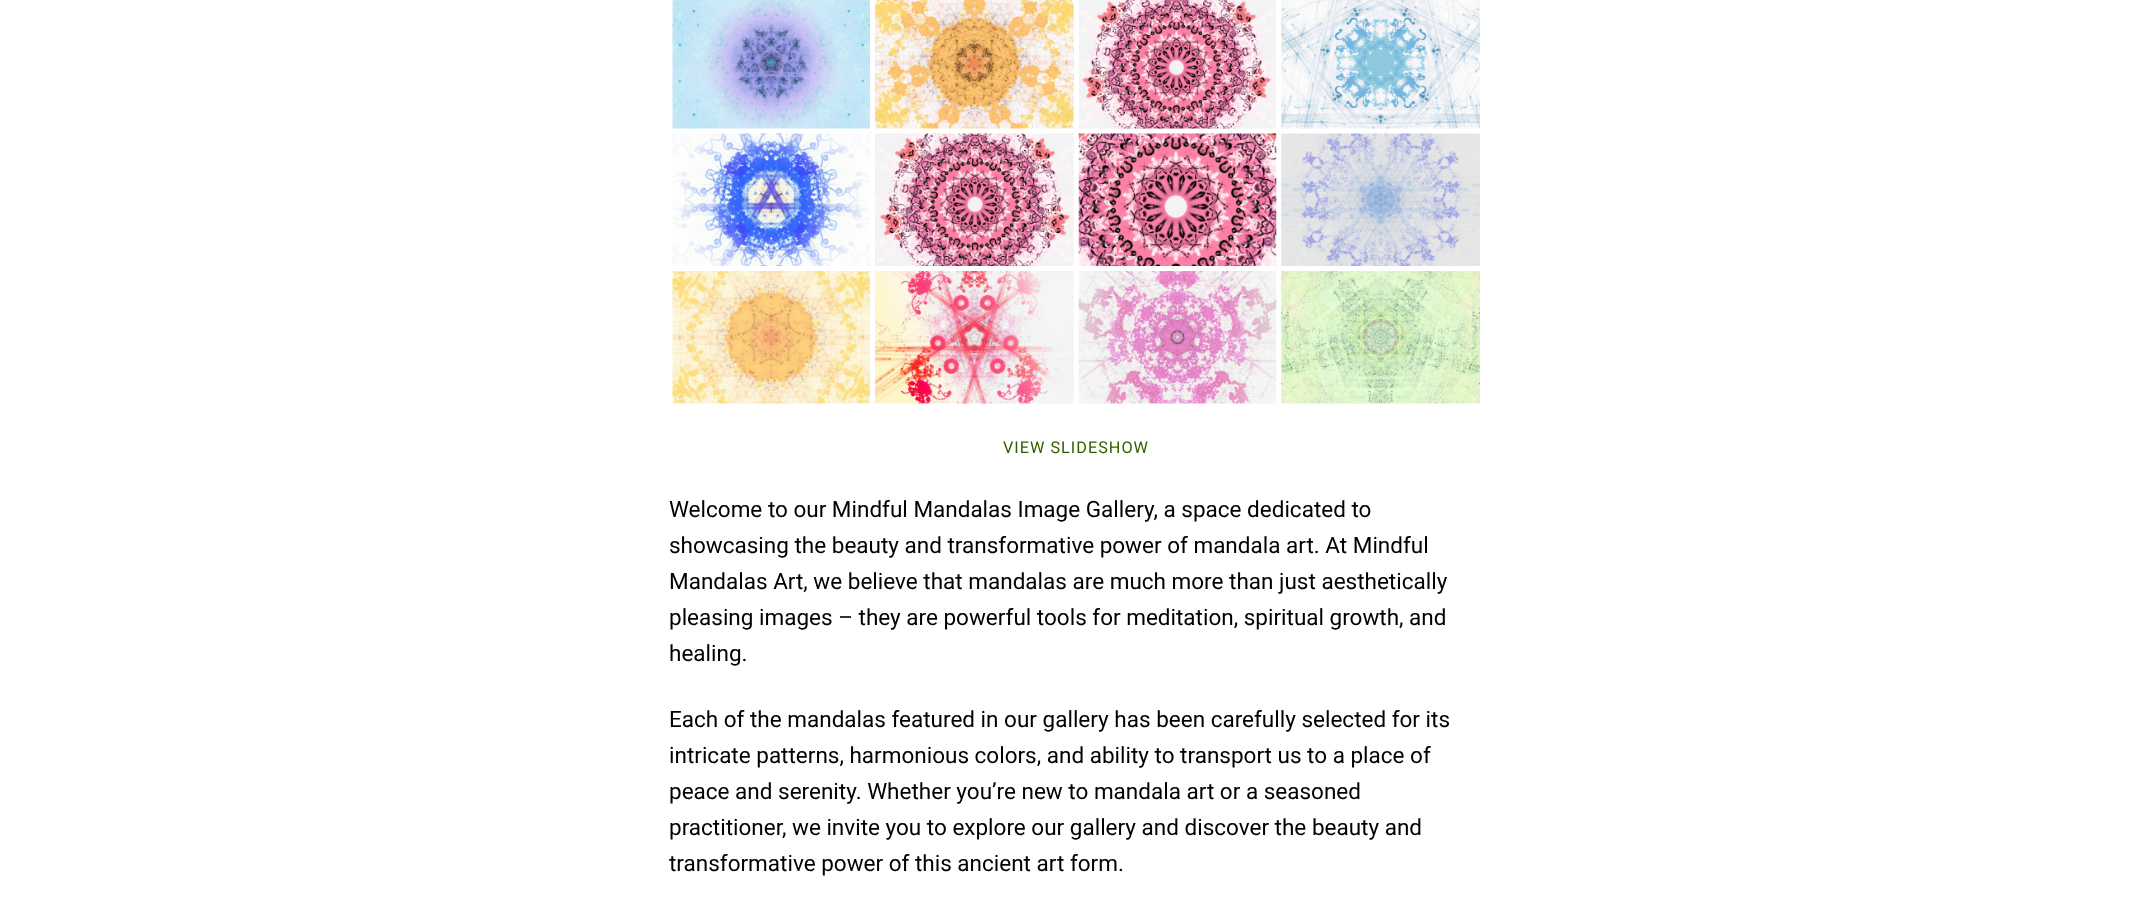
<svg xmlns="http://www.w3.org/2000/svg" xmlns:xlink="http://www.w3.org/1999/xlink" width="2151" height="922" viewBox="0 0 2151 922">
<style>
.cls-1{font:16.25px Roboto;letter-spacing:1px;fill:#345c00}
.cls-2{font:22.5px Roboto;fill:#000000}
</style>
<rect width="100%" height="100%" fill="#ffffff"/>
<image xlink:href="image0.png" x="672" y="0" width="198" height="129"/>
<image xlink:href="image1.png" x="875" y="0" width="199" height="129"/>
<image xlink:href="image2.png" x="1079" y="0" width="197" height="129"/>
<image xlink:href="image3.png" x="1281" y="0" width="199" height="129"/>
<image xlink:href="image4.png" x="672" y="133" width="198" height="133"/>
<image xlink:href="image5.png" x="875" y="133" width="199" height="133"/>
<image xlink:href="image6.png" x="1078" y="133" width="199" height="133"/>
<image xlink:href="image7.png" x="1281" y="133" width="199" height="133"/>
<image xlink:href="image8.png" x="672" y="271" width="198" height="133"/>
<image xlink:href="image9.png" x="875" y="271" width="199" height="133"/>
<image xlink:href="image10.png" x="1078" y="271" width="199" height="133"/>
<image xlink:href="image11.png" x="1281" y="271" width="199" height="133"/>
<text class="cls-1" x="1003" y="453">VIEW SLIDESHOW</text>
<text class="cls-2"><tspan x="669" y="517">Welcome to our Mindful Mandalas Image Gallery, a space dedicated to</tspan><tspan x="669" y="553">showcasing the beauty and transformative power of mandala art. At Mindful</tspan><tspan x="669" y="589">Mandalas Art, we believe that mandalas are much more than just aesthetically</tspan><tspan x="669" y="625">pleasing images – they are powerful tools for meditation, spiritual growth, and</tspan><tspan x="669" y="661">healing.</tspan></text>
<text class="cls-2"><tspan x="669" y="727">Each of the mandalas featured in our gallery has been carefully selected for its</tspan><tspan x="669" y="763">intricate patterns, harmonious colors, and ability to transport us to a place of</tspan><tspan x="669" y="799">peace and serenity. Whether you’re new to mandala art or a seasoned</tspan><tspan x="669" y="835">practitioner, we invite you to explore our gallery and discover the beauty and</tspan><tspan x="669" y="871">transformative power of this ancient art form.</tspan></text>
</svg>
